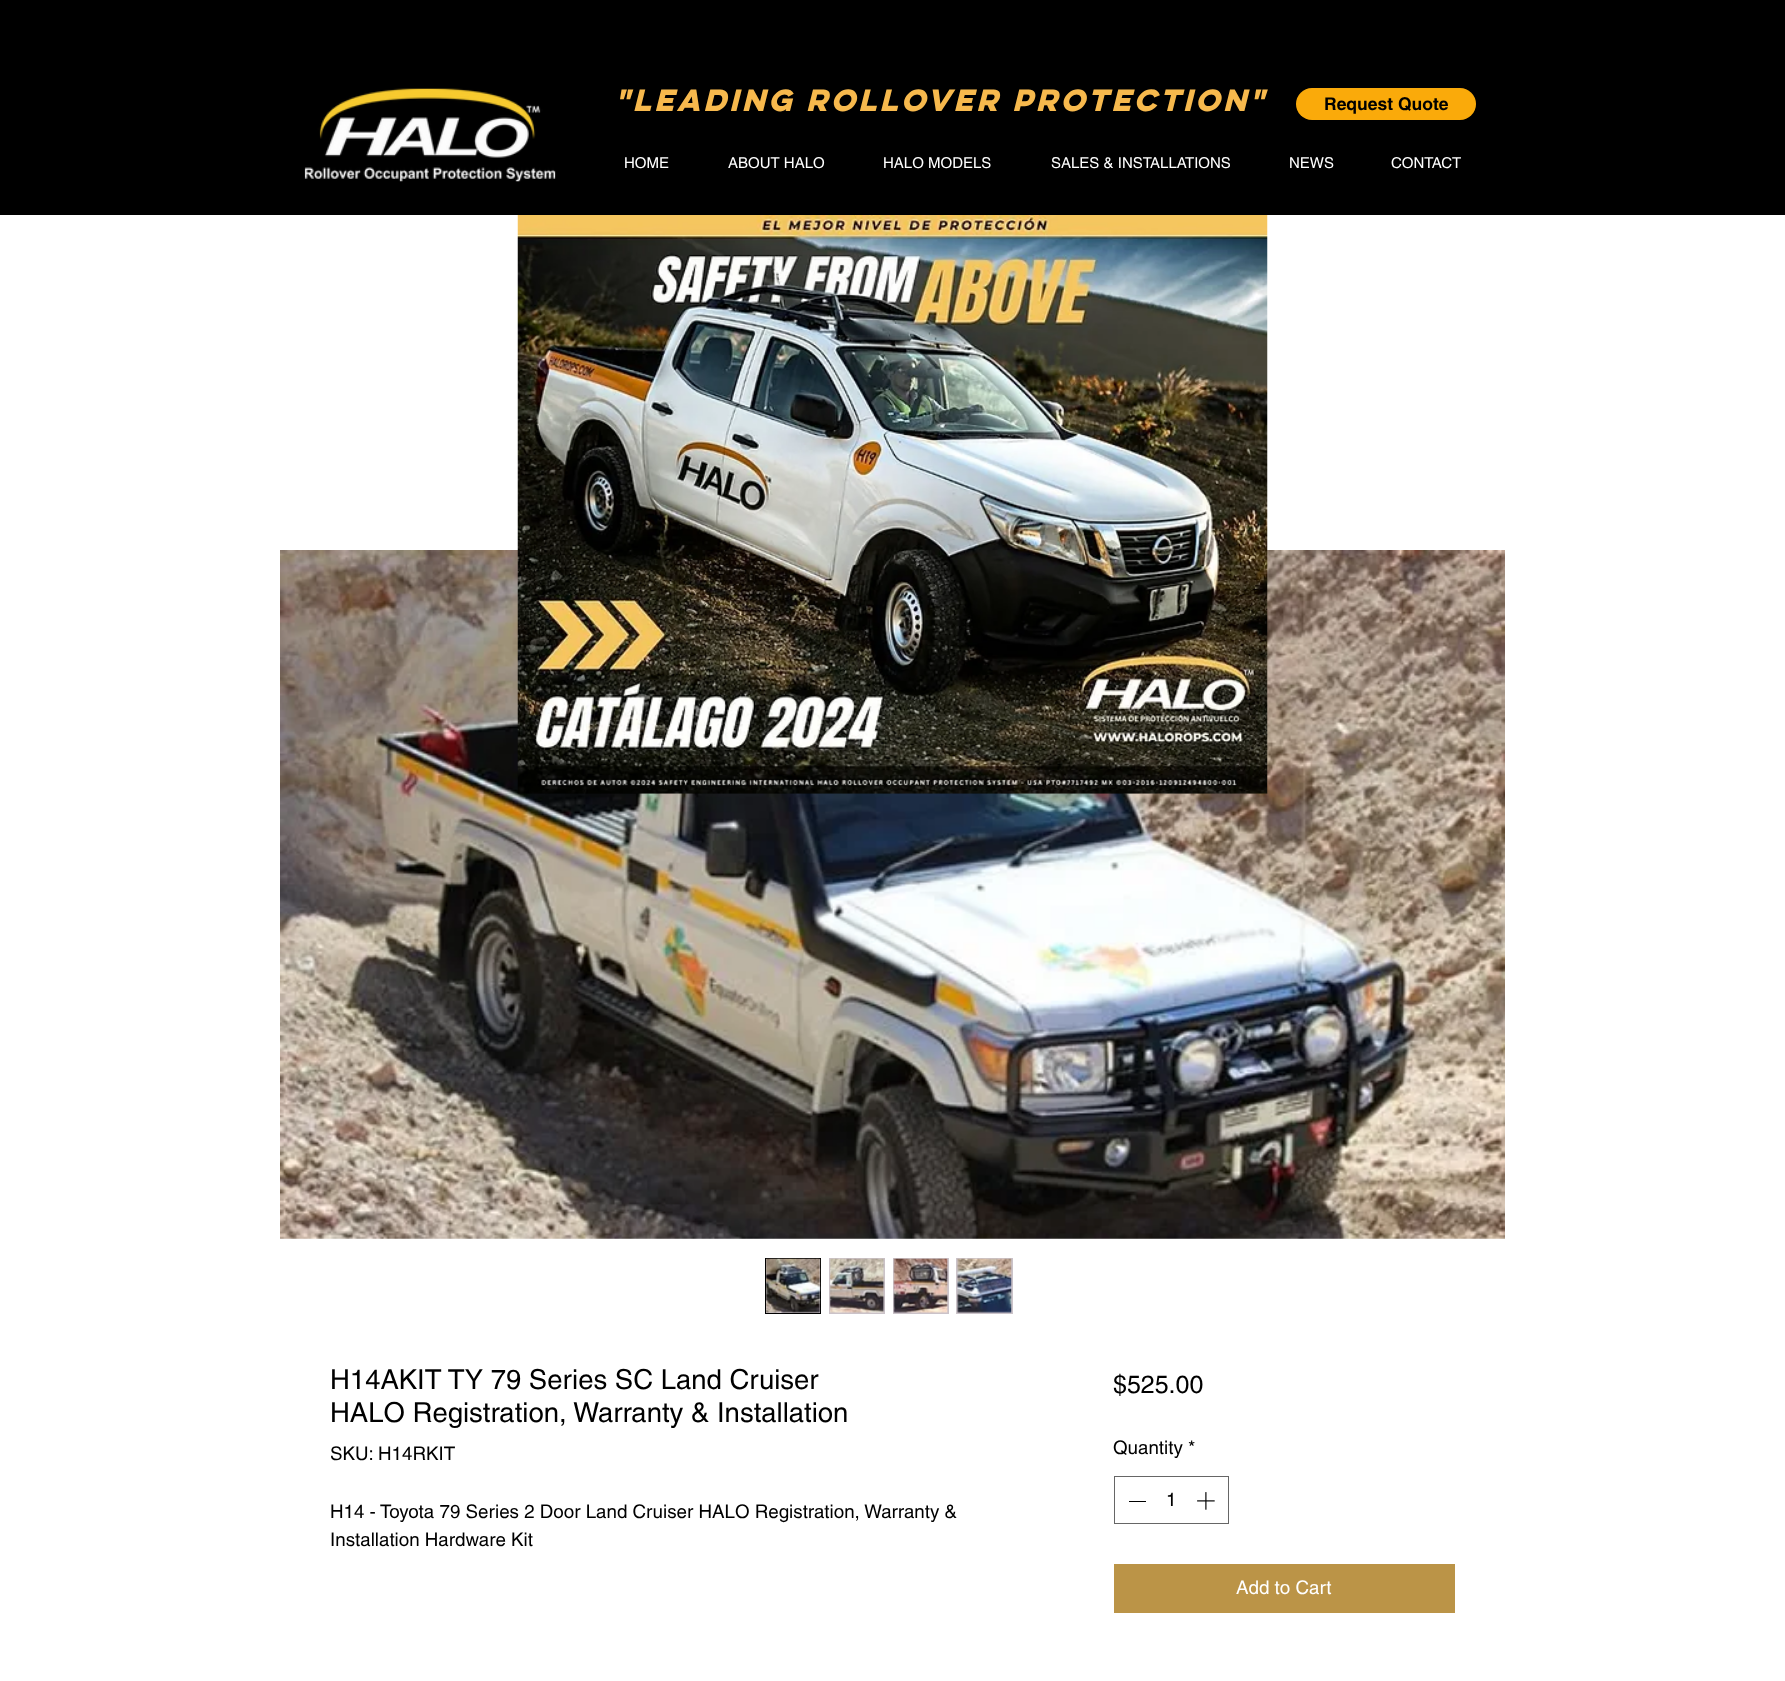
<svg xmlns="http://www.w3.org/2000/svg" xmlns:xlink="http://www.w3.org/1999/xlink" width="1785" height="1681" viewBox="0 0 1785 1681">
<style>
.cls-1{font:italic bold 27.5px 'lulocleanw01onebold';letter-spacing:-2.75px;fill:#f7b94d}
.cls-2{font:bold 17.5px helvetica;fill:#000000}
.cls-3{font:15px helvetica;fill:#ffffff}
.cls-4{font:27.5px helvetica;fill:#000000}
.cls-5{font:18.75px helvetica;fill:#000000}
.cls-6{font:25px helvetica;fill:#000000}
.cls-7{font:18.75px helvetica;fill:#ffffff}
</style>
<rect width="100%" height="100%" fill="#ffffff"/>
<rect fill="#000000" x="0" y="0" width="1785" height="215"/>
<image xlink:href="image0.png" x="304" y="88" width="252" height="94"/>
<rect fill="#faaa0a" x="1296" y="88" width="180" height="32" rx="16"/>
<image xlink:href="image2.png" x="280" y="550" width="1225" height="689"/>
<image xlink:href="image1.png" x="517" y="215" width="751" height="579"/>
<rect fill="#cbc3c9" stroke="#000000" x="765.5" y="1258.5" width="55" height="55"/>
<image xlink:href="image3.png" x="766" y="1258" width="55" height="55"/>
<rect fill="#cbc3c9" x="829" y="1258" width="56" height="56"/>
<image xlink:href="image4.png" x="829" y="1258" width="56" height="55"/>
<rect fill="#cbc3c9" x="893" y="1258" width="56" height="56"/>
<image xlink:href="image5.png" x="893" y="1258" width="55" height="55"/>
<rect fill="#cbc3c9" x="956" y="1258" width="57" height="56"/>
<image xlink:href="image6.png" x="957" y="1258" width="55" height="55"/>
<rect fill="none" stroke="#666666" x="1114.5" y="1476.5" width="114" height="47"/>
<rect fill="#000000" x="1129" y="1501" width="17" height="1"/>
<image xlink:href="image7.png" x="1197" y="1492" width="18" height="18"/>
<rect fill="#bb9447" x="1114" y="1564" width="341" height="49"/>
<text class="cls-1" x="615" y="111">"LEADING ROLLOVER PROTECTION"</text>
<text class="cls-2" x="1324" y="110">Request Quote</text>
<text class="cls-3" x="624" y="168">HOME</text>
<text class="cls-3" x="728" y="168">ABOUT HALO</text>
<text class="cls-3" x="883" y="168">HALO MODELS</text>
<text class="cls-3" x="1051" y="168">SALES &amp; INSTALLATIONS</text>
<text class="cls-3" x="1289" y="168">NEWS</text>
<text class="cls-3" x="1391" y="168">CONTACT</text>
<text class="cls-4"><tspan x="330" y="1389">H14AKIT TY 79 Series SC Land Cruiser</tspan><tspan x="330" y="1422">HALO Registration, Warranty &amp; Installation</tspan></text>
<text class="cls-5" x="330" y="1460">SKU: H14RKIT</text>
<text class="cls-5"><tspan x="330" y="1518">H14 - Toyota 79 Series 2 Door Land Cruiser HALO Registration, Warranty &amp;</tspan><tspan x="330" y="1546">Installation Hardware Kit</tspan></text>
<text class="cls-6" x="1113" y="1393">$525.00</text>
<text class="cls-5" x="1113" y="1454">Quantity *</text>
<text class="cls-5" x="1166" y="1506">1</text>
<text class="cls-7" x="1236" y="1594">Add to Cart</text>
</svg>
